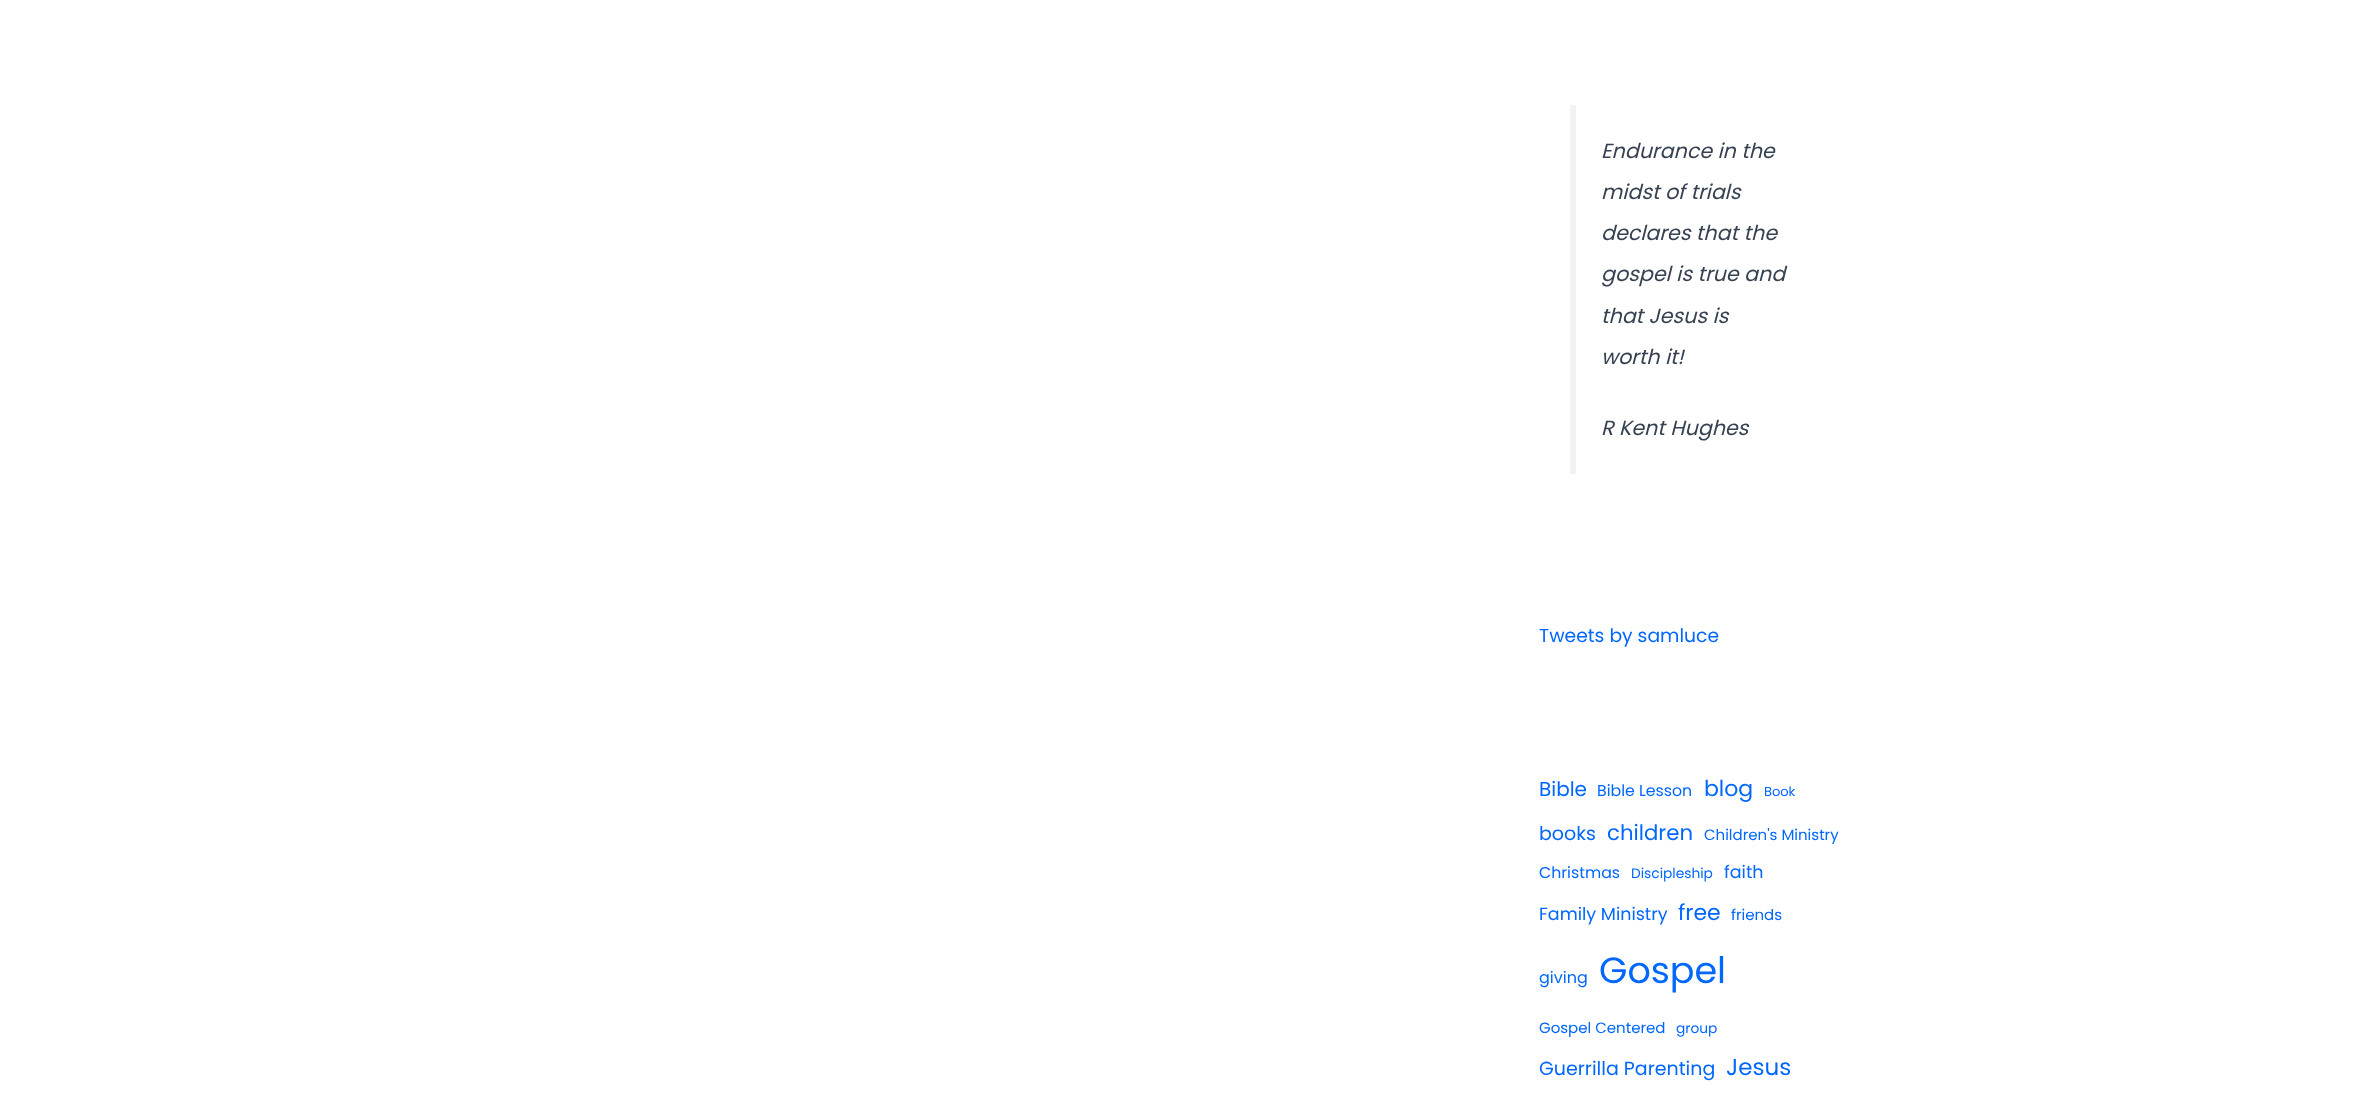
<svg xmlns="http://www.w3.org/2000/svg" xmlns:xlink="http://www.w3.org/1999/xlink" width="2367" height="1095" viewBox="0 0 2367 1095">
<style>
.cls-1{font:italic 20.6px Poppins;fill:#364151}
.cls-2{font:18.75px Poppins;fill:#0067ff}
.cls-3{font:20px Poppins;fill:#0067ff}
.cls-4{font:15.75px Poppins;fill:#0067ff}
.cls-5{font:22px Poppins;fill:#0067ff}
.cls-6{font:13px Poppins;fill:#0067ff}
.cls-7{font:19px Poppins;fill:#0067ff}
.cls-8{font:21.25px Poppins;fill:#0067ff}
.cls-9{font:15px Poppins;fill:#0067ff}
.cls-10{font:13.75px Poppins;fill:#0067ff}
.cls-11{font:17.5px Poppins;fill:#0067ff}
.cls-12{font:16px Poppins;fill:#0067ff}
.cls-13{font:36.5px Poppins;fill:#0067ff}
.cls-14{font:23px Poppins;fill:#0067ff}
</style>
<rect width="100%" height="100%" fill="#ffffff"/>
<rect fill="#f2f2f2" x="1570" y="105" width="6" height="369"/>
<text class="cls-1"><tspan x="1601" y="158">Endurance in the</tspan><tspan x="1601" y="199">midst of trials</tspan><tspan x="1601" y="240">declares that the</tspan><tspan x="1601" y="281">gospel is true and</tspan></text>
<text class="cls-1"><tspan x="1601" y="323">that Jesus is</tspan><tspan x="1601" y="364">worth it!</tspan></text>
<text class="cls-1" x="1601" y="435">R Kent Hughes</text>
<text class="cls-2" x="1539" y="642">Tweets by samluce</text>
<text class="cls-3" x="1539" y="796">Bible</text>
<text class="cls-4" x="1597" y="796">Bible Lesson</text>
<text class="cls-5" x="1704" y="796">blog</text>
<text class="cls-6" x="1764" y="796">Book</text>
<text class="cls-7" x="1539" y="840">books</text>
<text class="cls-8" x="1607" y="840">children</text>
<text class="cls-9" x="1704" y="840">Children's Ministry</text>
<text class="cls-4" x="1539" y="878">Christmas</text>
<text class="cls-10" x="1631" y="878">Discipleship</text>
<text class="cls-11" x="1724" y="878">faith</text>
<text class="cls-11" x="1539" y="920">Family Ministry</text>
<text class="cls-5" x="1678" y="920">free</text>
<text class="cls-9" x="1731" y="920">friends</text>
<text class="cls-12" x="1539" y="983">giving</text>
<text class="cls-13" x="1599" y="983">Gospel</text>
<text class="cls-9" x="1539" y="1033">Gospel Centered</text>
<text class="cls-10" x="1676" y="1033">group</text>
<text class="cls-7" x="1539" y="1075">Guerrilla Parenting</text>
<text class="cls-14" x="1726" y="1075">Jesus</text>
</svg>
